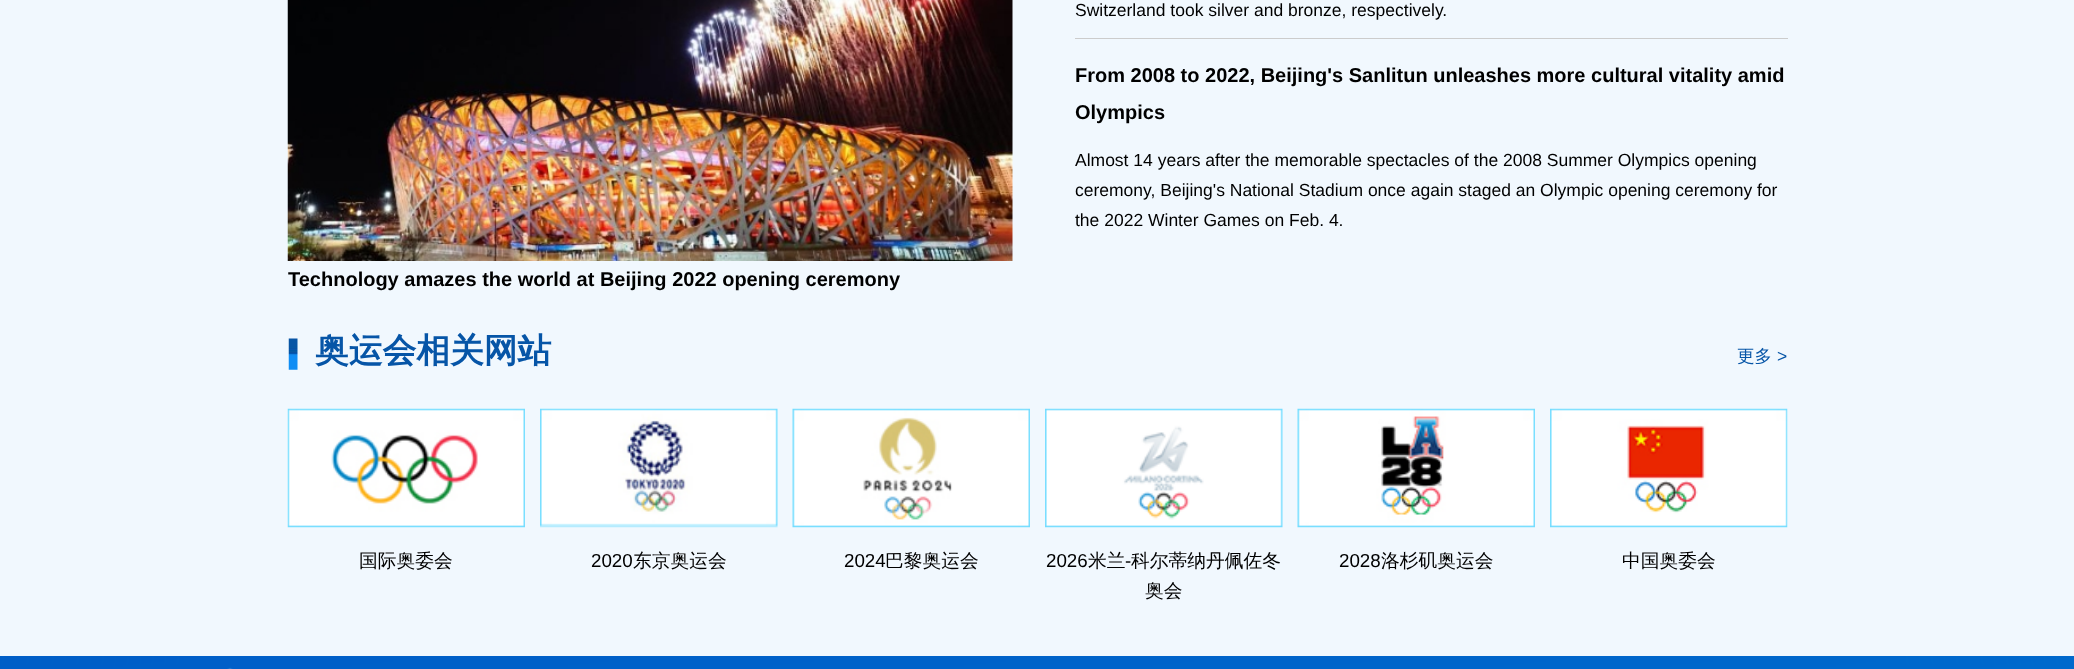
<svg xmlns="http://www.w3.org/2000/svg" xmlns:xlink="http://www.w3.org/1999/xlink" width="2074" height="669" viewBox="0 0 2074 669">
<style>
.cls-1{font:17.5px Liberation Sans;fill:#000000}
.cls-2{font:bold 20px Liberation Sans;fill:#000000}
.cls-3{font:bold 33.75px WenQuanYi Zen Hei;fill:#0655a7}
.cls-4{font:500 17.5px WenQuanYi Zen Hei;fill:#0655a7}
.cls-5{font:17.5px Liberation Sans;fill:#0655a7}
.cls-6{font:500 18.75px WenQuanYi Zen Hei;fill:#000000}
.cls-7{font:18.75px Liberation Sans;fill:#000000}
</style>
<defs>
<clipPath id="clip1"><rect x="288" y="0" width="1500" height="299"/></clipPath>
</defs>
<rect width="100%" height="100%" fill="#ffffff"/>
<rect fill="#f1f8fe" x="0" y="0" width="2074" height="656"/>
<rect fill="#cccccc" x="1075" y="38" width="713" height="1"/>
<image xlink:href="image0.png" x="287" y="0" width="726" height="261"/>
<image xlink:href="image1.png" x="288" y="338" width="10" height="32"/>
<image xlink:href="image2.png" x="287" y="408" width="238" height="120"/>
<image xlink:href="image3.png" x="540" y="408" width="238" height="120"/>
<image xlink:href="image4.png" x="792" y="408" width="238" height="120"/>
<image xlink:href="image5.png" x="1045" y="408" width="238" height="120"/>
<image xlink:href="image6.png" x="1297" y="408" width="238" height="120"/>
<image xlink:href="image7.png" x="1550" y="408" width="238" height="120"/>
<image xlink:href="image8.png" x="0" y="656" width="2074" height="13"/>
<text class="cls-1" x="1075" y="16">Switzerland took silver and bronze, respectively.</text>
<text class="cls-2"><tspan x="1075" y="82">From 2008 to 2022, Beijing's Sanlitun unleashes more cultural vitality amid</tspan><tspan x="1075" y="119">Olympics</tspan></text>
<text class="cls-1"><tspan x="1075" y="166">Almost 14 years after the memorable spectacles of the 2008 Summer Olympics opening</tspan><tspan x="1075" y="196">ceremony, Beijing's National Stadium once again staged an Olympic opening ceremony for</tspan><tspan x="1075" y="226">the 2022 Winter Games on Feb. 4.</tspan></text>
<g clip-path="url(#clip1)">
<text class="cls-2" x="288" y="286">Technology amazes the world at Beijing 2022 opening ceremony</text>
</g>
<text class="cls-3" x="315" y="362">奥运会相关网站</text>
<text class="cls-4" x="1737" y="362">更多</text>
<text class="cls-5" x="1777" y="362">&gt;</text>
<text class="cls-6" x="359" y="567">国际奥委会</text>
<text class="cls-7" x="591" y="567">2020</text>
<text class="cls-6" x="633" y="567">东京奥运会</text>
<text class="cls-7" x="844" y="567">2024</text>
<text class="cls-6" x="885" y="567">巴黎奥运会</text>
<text class="cls-7" x="1046" y="567">2026</text>
<text class="cls-6" x="1088" y="567">米兰</text>
<text class="cls-7" x="1125" y="567">-</text>
<text class="cls-6" x="1131" y="567">科尔蒂纳丹佩佐冬</text>
<text class="cls-6" x="1145" y="597">奥会</text>
<text class="cls-7" x="1339" y="567">2028</text>
<text class="cls-6" x="1381" y="567">洛杉矶奥运会</text>
<text class="cls-6" x="1622" y="567">中国奥委会</text>
</svg>
